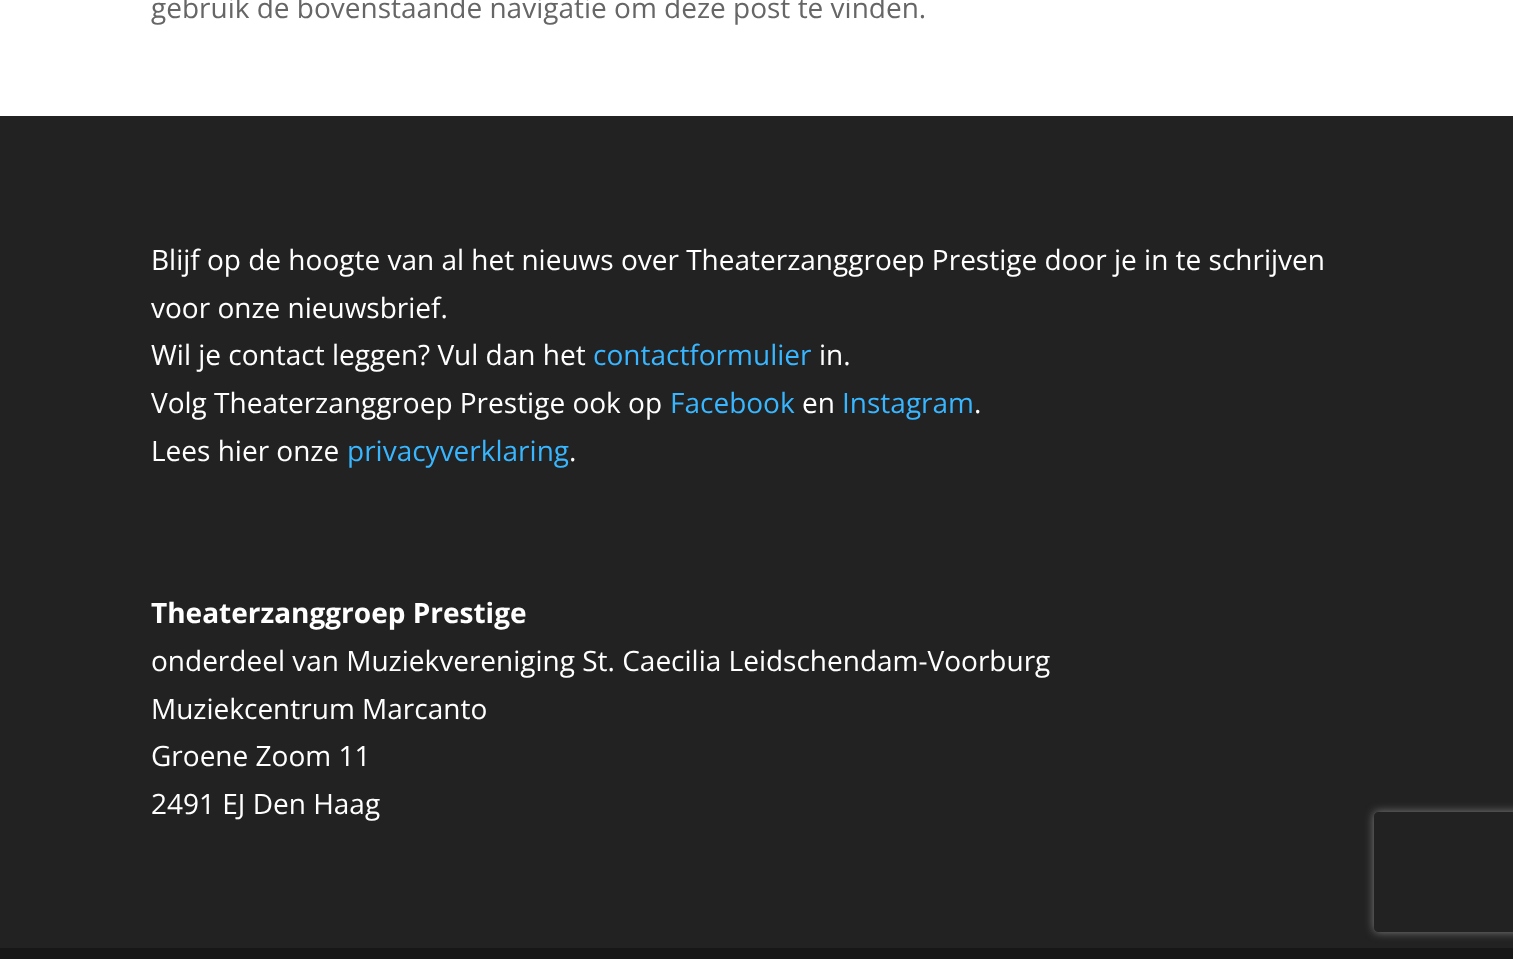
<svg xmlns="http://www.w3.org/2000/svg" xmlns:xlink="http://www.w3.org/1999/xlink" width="1513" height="959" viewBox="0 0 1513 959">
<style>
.cls-1{font:28px Open Sans;fill:#666666}
.cls-2{font:28px Open Sans;fill:#ffffff}
.cls-3{font:28px Open Sans;fill:#38b6ff}
.cls-4{font:bold 28px Open Sans;fill:#ffffff}
</style>
<defs>
<clipPath id="clip1"><path d="M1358 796H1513V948H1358ZM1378 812H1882C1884 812 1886 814 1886 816V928C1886 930 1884 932 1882 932H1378C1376 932 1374 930 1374 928V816C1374 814 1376 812 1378 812Z" clip-rule="evenodd"/></clipPath>
</defs>
<rect width="100%" height="100%" fill="#ffffff"/>
<rect fill="#222222" x="0" y="116" width="1513" height="832"/>
<rect fill="#171717" x="0" y="948" width="1513" height="11"/>
<g clip-path="url(#clip1)">
<rect fill="#808080" filter="blur(5px)" x="1374" y="812" width="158" height="120" rx="4"/>
</g>
<text class="cls-1" x="151" y="18">gebruik de bovenstaande navigatie om deze post te vinden.</text>
<text class="cls-2"><tspan x="151" y="270">Blijf op de hoogte van al het nieuws over Theaterzanggroep Prestige door je in te schrijven</tspan><tspan x="151" y="318">voor onze nieuwsbrief.</tspan><tspan x="151" y="365">Wil je contact leggen? Vul dan het</tspan></text>
<text class="cls-3" x="593" y="365">contactformulier</text>
<text class="cls-2" x="819" y="365">in.</text>
<text class="cls-2" x="151" y="413">Volg Theaterzanggroep Prestige ook op</text>
<text class="cls-3" x="670" y="413">Facebook</text>
<text class="cls-2" x="802" y="413">en</text>
<text class="cls-3" x="842" y="413">Instagram</text>
<text class="cls-2" x="974" y="413">.</text>
<text class="cls-2" x="151" y="461">Lees hier onze</text>
<text class="cls-3" x="347" y="461">privacyverklaring</text>
<text class="cls-2" x="569" y="461">.</text>
<text class="cls-4" x="151" y="623">Theaterzanggroep Prestige</text>
<text class="cls-2"><tspan x="151" y="671">onderdeel van Muziekvereniging St. Caecilia Leidschendam-Voorburg</tspan><tspan x="151" y="719">Muziekcentrum Marcanto</tspan><tspan x="151" y="766">Groene Zoom 11</tspan><tspan x="151" y="814">2491 EJ Den Haag</tspan></text>
</svg>
